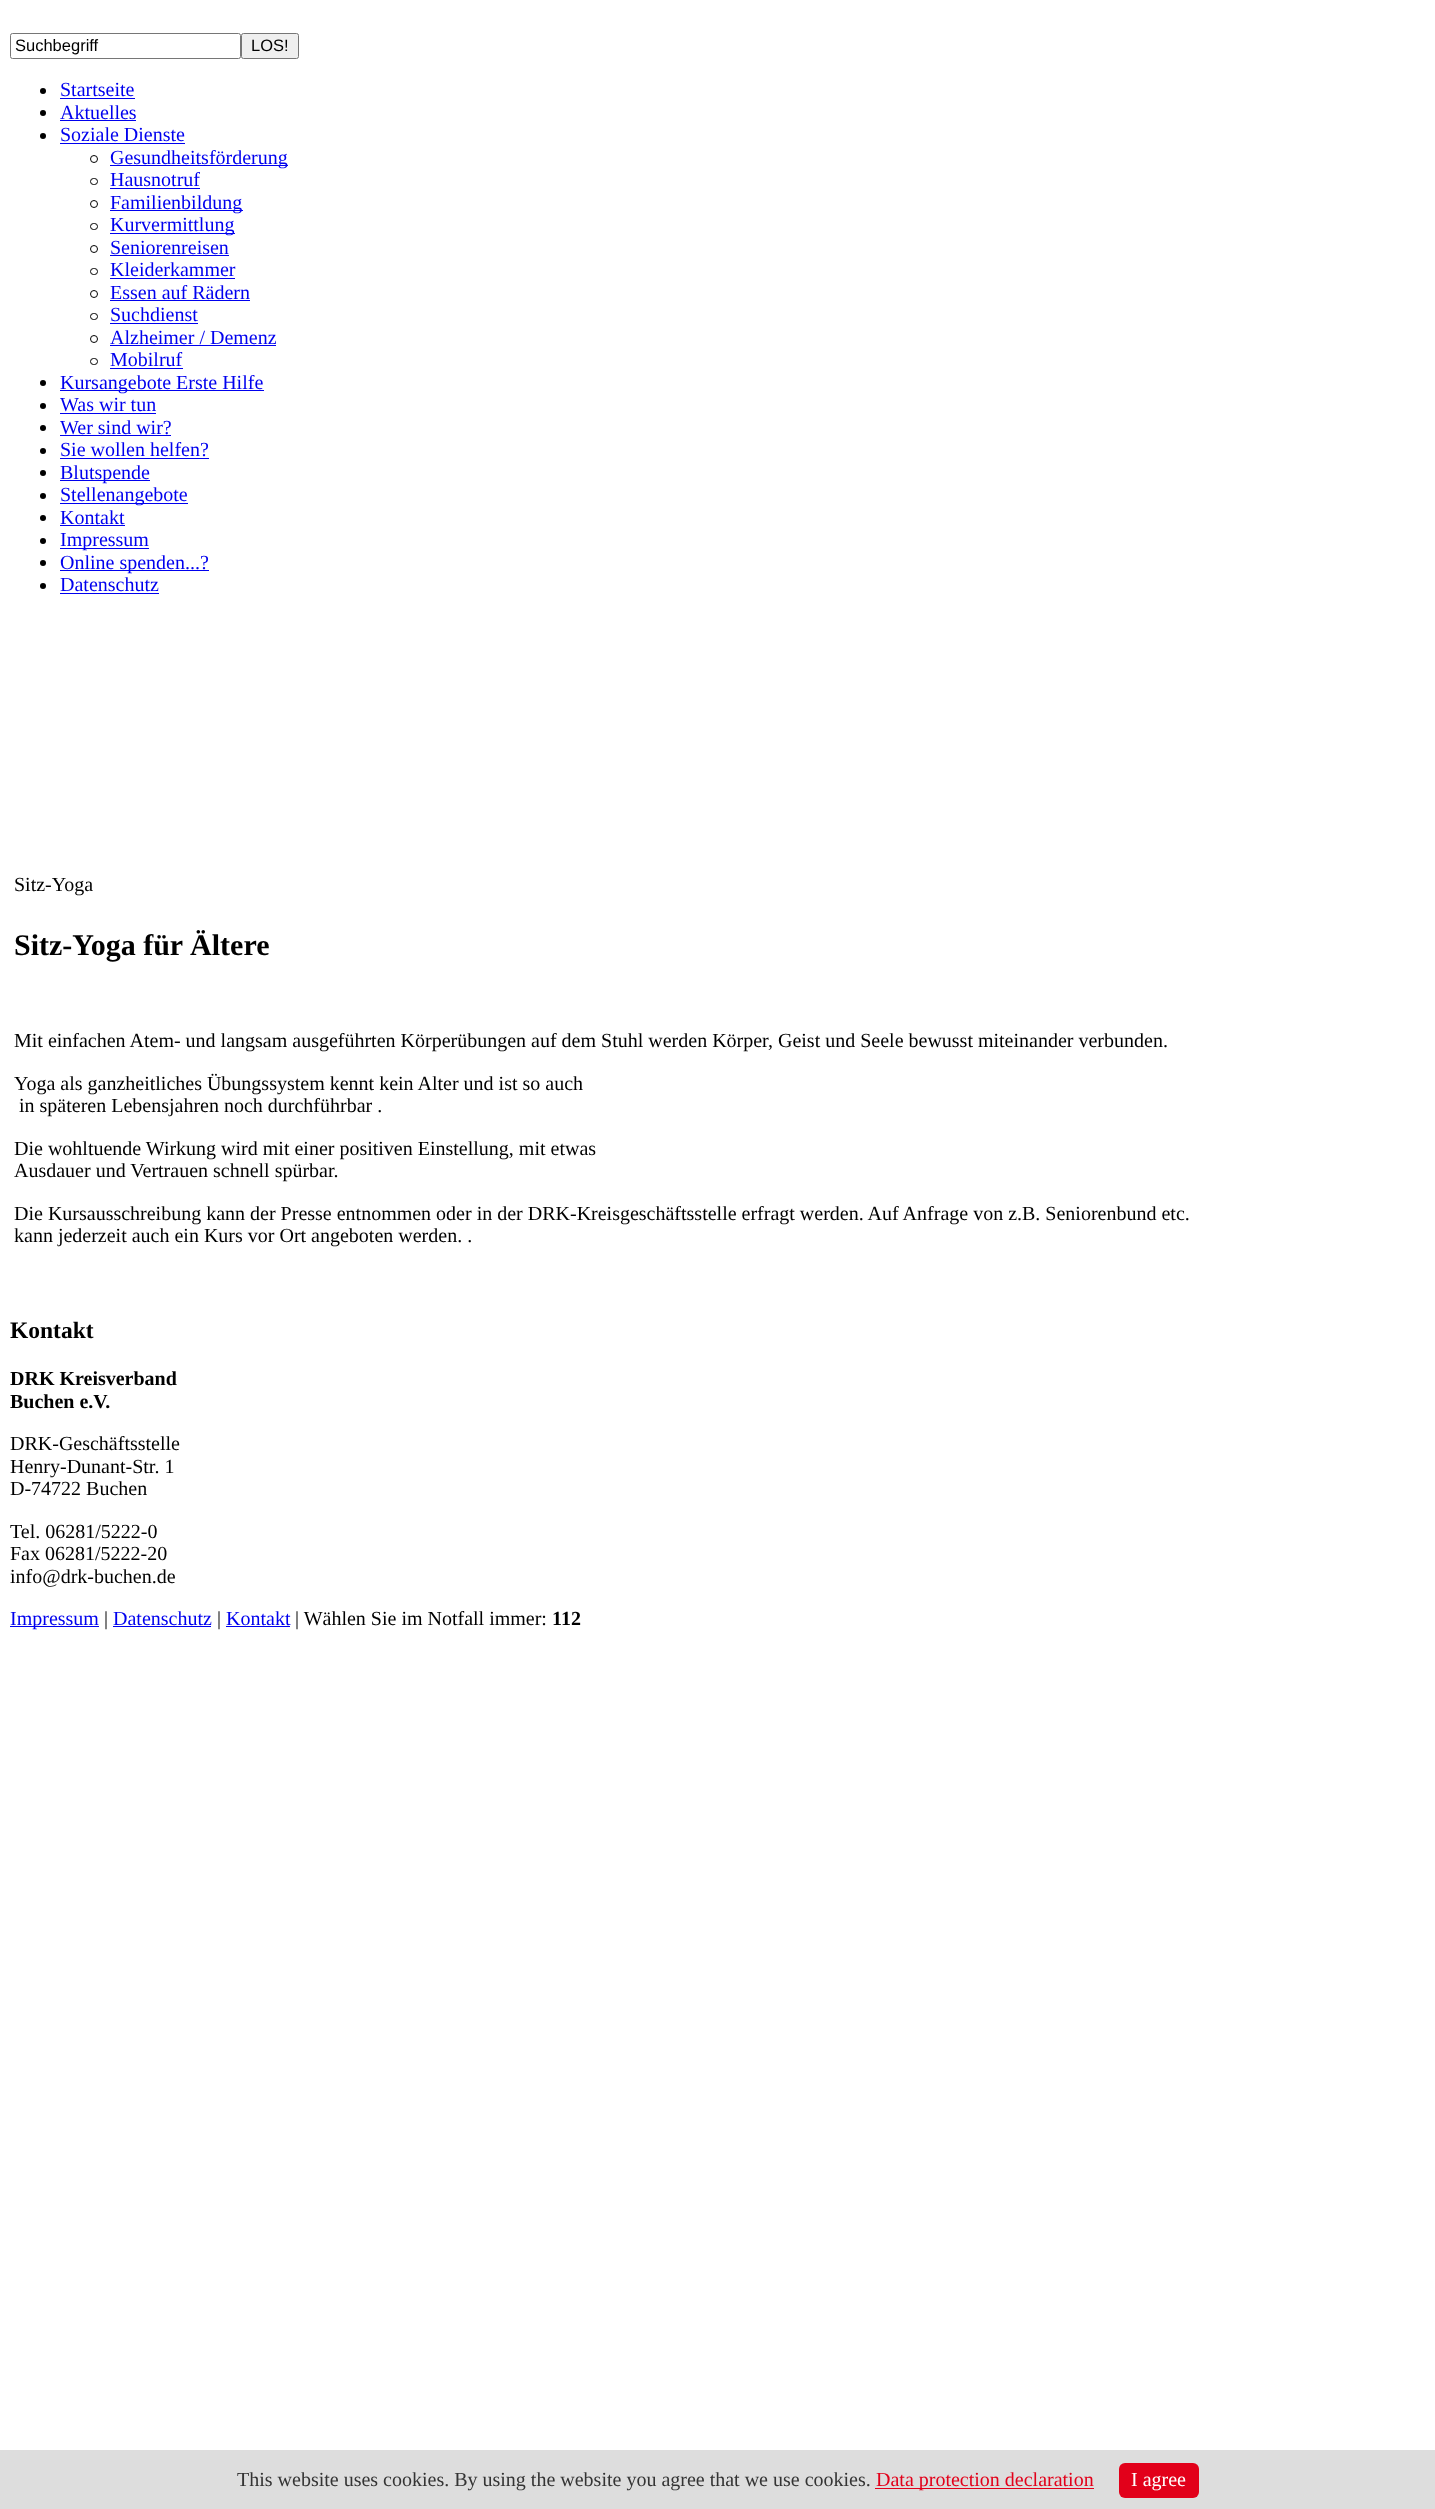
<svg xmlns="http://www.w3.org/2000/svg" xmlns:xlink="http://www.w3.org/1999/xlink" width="1435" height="2509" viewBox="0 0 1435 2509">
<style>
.cls-1{font:16.5px Liberation Sans;fill:#000000}
.cls-2{font:20px Liberation Serif;fill:#0000ee}
.cls-3{font:20px Liberation Serif;fill:#000000}
.cls-4{font:bold 30px Liberation Serif;fill:#000000}
.cls-5{font:bold 23.5px Liberation Serif;fill:#000000}
.cls-6{font:bold 20px Liberation Serif;fill:#000000}
.cls-7{font:20px Liberation Serif;fill:#343434}
.cls-8{font:20px Liberation Serif;fill:#e2001a}
.cls-9{font:20px Liberation Serif;fill:#ffffff}
</style>
<rect width="100%" height="100%" fill="#ffffff"/>
<rect fill="none" stroke="#767676" x="10.5" y="33.5" width="230" height="25" rx="2"/>
<rect fill="#efefef" stroke="#767676" x="241.5" y="33.5" width="57" height="25" rx="2"/>
<circle fill="#000000" cx="43" cy="91" r="3"/>
<rect fill="#0000ee" x="60" y="98" width="75" height="1"/>
<circle fill="#000000" cx="43" cy="113" r="3"/>
<rect fill="#0000ee" x="60" y="120" width="76" height="1"/>
<circle fill="#000000" cx="43" cy="136" r="3"/>
<rect fill="#0000ee" x="60" y="143" width="125" height="1"/>
<circle fill="none" stroke="#000000" cx="94" cy="159" r="3.5"/>
<rect fill="#0000ee" x="110" y="165" width="178" height="1"/>
<rect fill="none" stroke="#000000" x="90.5" y="178.5" width="7" height="6" rx="3"/>
<rect fill="#0000ee" x="110" y="188" width="90" height="1"/>
<circle fill="none" stroke="#000000" cx="94" cy="204" r="3.5"/>
<rect fill="#0000ee" x="110" y="210" width="133" height="1"/>
<rect fill="none" stroke="#000000" x="90.5" y="223.5" width="7" height="6" rx="3"/>
<rect fill="#0000ee" x="110" y="233" width="125" height="1"/>
<circle fill="none" stroke="#000000" cx="94" cy="249" r="3.5"/>
<rect fill="#0000ee" x="110" y="255" width="119" height="1"/>
<rect fill="none" stroke="#000000" x="90.5" y="268.5" width="7" height="6" rx="3"/>
<rect fill="#0000ee" x="110" y="278" width="125" height="1"/>
<circle fill="none" stroke="#000000" cx="94" cy="294" r="3.5"/>
<rect fill="#0000ee" x="110" y="300" width="140" height="1"/>
<rect fill="none" stroke="#000000" x="90.5" y="313.5" width="7" height="6" rx="3"/>
<rect fill="#0000ee" x="110" y="323" width="88" height="1"/>
<circle fill="none" stroke="#000000" cx="94" cy="339" r="3.5"/>
<rect fill="#0000ee" x="110" y="345" width="166" height="1"/>
<rect fill="none" stroke="#000000" x="90.5" y="358.5" width="7" height="6" rx="3"/>
<rect fill="#0000ee" x="110" y="368" width="73" height="1"/>
<circle fill="#000000" cx="43" cy="383" r="3"/>
<rect fill="#0000ee" x="60" y="390" width="204" height="1"/>
<circle fill="#000000" cx="43" cy="406" r="3"/>
<rect fill="#0000ee" x="60" y="413" width="96" height="1"/>
<circle fill="#000000" cx="43" cy="428" r="3"/>
<rect fill="#0000ee" x="60" y="435" width="111" height="1"/>
<circle fill="#000000" cx="43" cy="451" r="3"/>
<rect fill="#0000ee" x="60" y="458" width="149" height="1"/>
<circle fill="#000000" cx="43" cy="473" r="3"/>
<rect fill="#0000ee" x="60" y="480" width="90" height="1"/>
<circle fill="#000000" cx="43" cy="496" r="3"/>
<rect fill="#0000ee" x="60" y="503" width="128" height="1"/>
<circle fill="#000000" cx="43" cy="518" r="3"/>
<rect fill="#0000ee" x="60" y="525" width="65" height="1"/>
<circle fill="#000000" cx="43" cy="541" r="3"/>
<rect fill="#0000ee" x="60" y="548" width="89" height="1"/>
<circle fill="#000000" cx="43" cy="563" r="3"/>
<rect fill="#0000ee" x="60" y="570" width="149" height="1"/>
<circle fill="#000000" cx="43" cy="586" r="3"/>
<rect fill="#0000ee" x="60" y="593" width="99" height="1"/>
<rect fill="#0000ee" x="10" y="1626" width="89" height="1"/>
<rect fill="#0000ee" x="113" y="1626" width="98" height="1"/>
<rect fill="#0000ee" x="226" y="1626" width="64" height="1"/>
<rect fill="#dddddd" x="0" y="2450" width="1435" height="59"/>
<rect fill="#e2001a" x="875" y="2488" width="219" height="1"/>
<rect fill="#e2001a" x="1119" y="2463" width="80" height="35" rx="6"/>
<text class="cls-1" x="15" y="51">Suchbegriff</text>
<text class="cls-1" x="251" y="51">LOS!</text>
<text class="cls-2"><tspan x="60" y="96">Startseite</tspan><tspan x="60" y="119">Aktuelles</tspan><tspan x="60" y="141">Soziale Dienste</tspan></text>
<text class="cls-2"><tspan x="110" y="164">Gesundheitsförderung</tspan><tspan x="110" y="186">Hausnotruf</tspan><tspan x="110" y="209">Familienbildung</tspan><tspan x="110" y="231">Kurvermittlung</tspan><tspan x="110" y="254">Seniorenreisen</tspan><tspan x="110" y="276">Kleiderkammer</tspan><tspan x="110" y="299">Essen auf Rädern</tspan><tspan x="110" y="321">Suchdienst</tspan><tspan x="110" y="344">Alzheimer / Demenz</tspan><tspan x="110" y="366">Mobilruf</tspan></text>
<text class="cls-2"><tspan x="60" y="389">Kursangebote Erste Hilfe</tspan><tspan x="60" y="411">Was wir tun</tspan><tspan x="60" y="434">Wer sind wir?</tspan><tspan x="60" y="456">Sie wollen helfen?</tspan><tspan x="60" y="479">Blutspende</tspan><tspan x="60" y="501">Stellenangebote</tspan><tspan x="60" y="524">Kontakt</tspan><tspan x="60" y="546">Impressum</tspan><tspan x="60" y="569">Online spenden...?</tspan><tspan x="60" y="591">Datenschutz</tspan></text>
<text class="cls-3" x="14" y="891">Sitz-Yoga</text>
<text class="cls-4" x="14" y="955">Sitz-Yoga für Ältere</text>
<text class="cls-3" x="14" y="1047">Mit einfachen Atem- und langsam ausgeführten Körperübungen auf dem Stuhl werden Körper, Geist und Seele bewusst miteinander verbunden.</text>
<text class="cls-3" x="14" y="1090">Yoga als ganzheitliches Übungssystem kennt kein Alter und ist so auch</text>
<text class="cls-3" x="19" y="1112">in späteren Lebensjahren noch durchführbar .</text>
<text class="cls-3"><tspan x="14" y="1155">Die wohltuende Wirkung wird mit einer positiven Einstellung, mit etwas</tspan><tspan x="14" y="1177">Ausdauer und Vertrauen schnell spürbar.</tspan></text>
<text class="cls-3"><tspan x="14" y="1220">Die Kursausschreibung kann der Presse entnommen oder in der DRK-Kreisgeschäftsstelle erfragt werden. Auf Anfrage von z.B. Seniorenbund etc.</tspan><tspan x="14" y="1242">kann jederzeit auch ein Kurs vor Ort angeboten werden. .</tspan></text>
<text class="cls-5" x="10" y="1338">Kontakt</text>
<text class="cls-6"><tspan x="10" y="1385">DRK Kreisverband</tspan><tspan x="10" y="1408">Buchen e.V.</tspan></text>
<text class="cls-3"><tspan x="10" y="1450">DRK-Geschäftsstelle</tspan><tspan x="10" y="1473">Henry-Dunant-Str. 1</tspan><tspan x="10" y="1495">D-74722 Buchen</tspan></text>
<text class="cls-3"><tspan x="10" y="1538">Tel. 06281/5222-0</tspan><tspan x="10" y="1560">Fax 06281/5222-20</tspan><tspan x="10" y="1583">info@drk-buchen.de</tspan></text>
<text class="cls-2" x="10" y="1625">Impressum</text>
<text class="cls-3" x="104" y="1625">|</text>
<text class="cls-2" x="113" y="1625">Datenschutz</text>
<text class="cls-3" x="217" y="1625">|</text>
<text class="cls-2" x="226" y="1625">Kontakt</text>
<text class="cls-3" x="295" y="1625">| Wählen Sie im Notfall immer:</text>
<text class="cls-6" x="552" y="1625">112</text>
<text class="cls-7" x="237" y="2486">This website uses cookies. By using the website you agree that we use cookies.</text>
<text class="cls-8" x="876" y="2486">Data protection declaration</text>
<text class="cls-9" x="1131" y="2486">I agree</text>
</svg>
